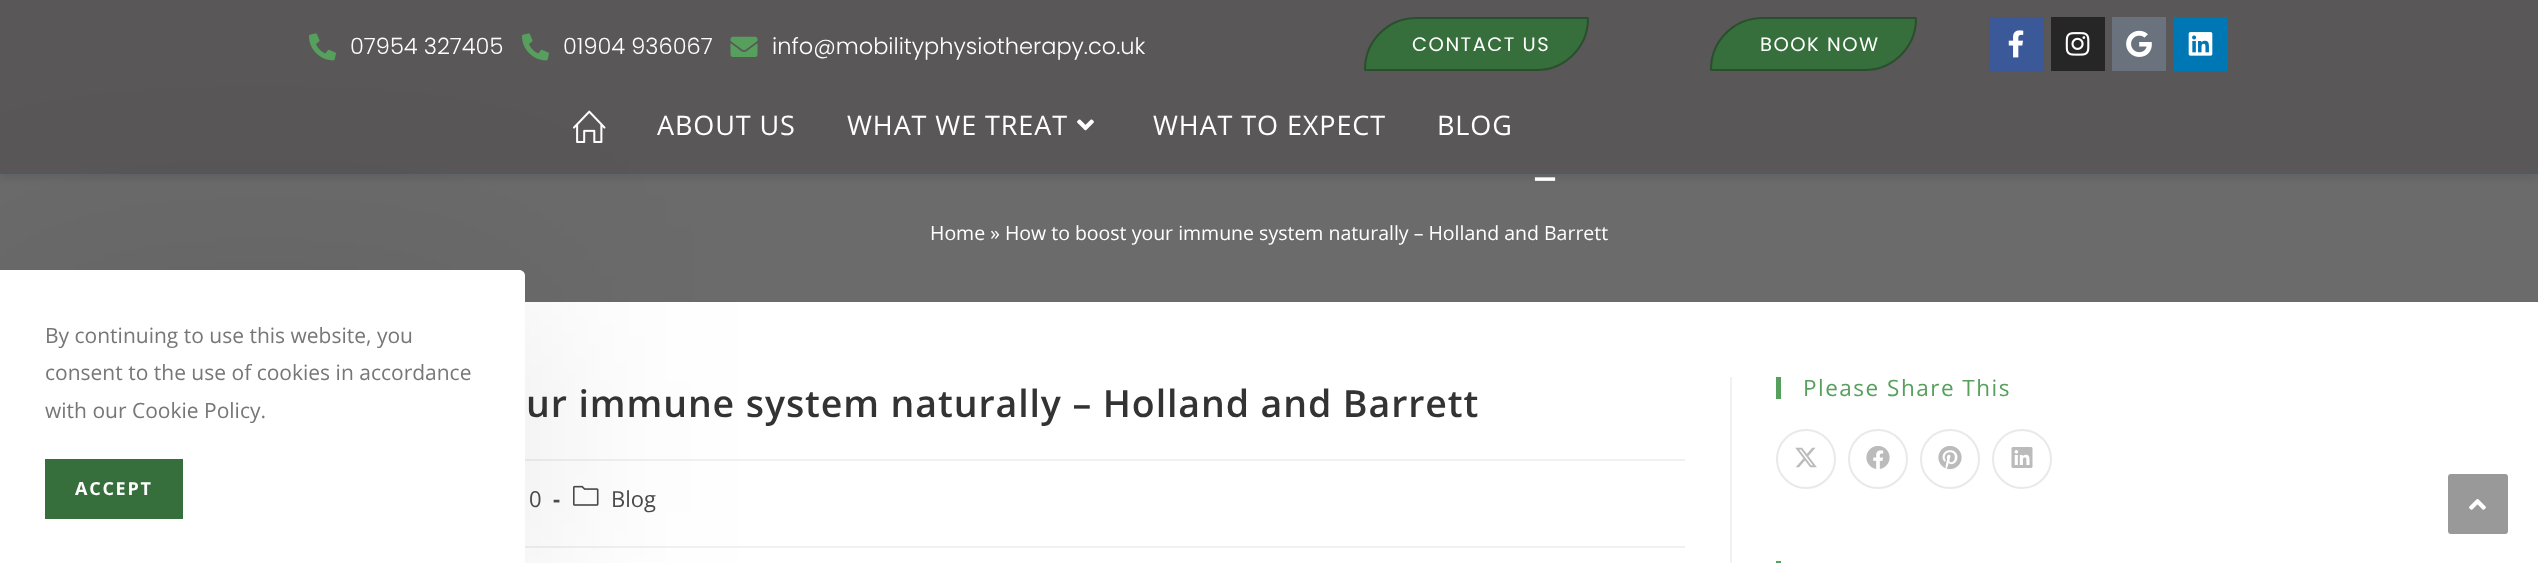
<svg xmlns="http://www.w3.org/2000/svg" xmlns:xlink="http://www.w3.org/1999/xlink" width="2538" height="563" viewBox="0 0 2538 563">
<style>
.cls-1{font:21px Open Sans;fill:#777777}
.cls-2{font:bold 18px Open Sans;letter-spacing:1.75px;fill:#ffffff}
.cls-3{font:300 22.5px Poppins;fill:#ffffff}
.cls-4{font:19.5px Poppins;letter-spacing:1.5px;fill:#ffffff}
.cls-5{font:27px Open Sans;letter-spacing:0.9px;fill:#ffffff}
.cls-6{font:48px Open Sans;fill:#ffffff}
.cls-7{font:19.5px Open Sans;fill:#ffffff}
.cls-8{font:600 37.5px Open Sans;letter-spacing:0.9px;fill:#333333}
.cls-9{font:22px Open Sans;fill:#4a4a4a}
.cls-10{font:bold 22px Open Sans;fill:#4a4a4a}
.cls-11{font:22.5px Open Sans;letter-spacing:1.5px;fill:#569f5d}
</style>
<rect width="100%" height="100%" fill="#ffffff"/>
<rect fill="#6b6b6b" x="0" y="174" width="2538" height="128"/>
<rect fill="#000000" fill-opacity="0.1" filter="blur(4px)" x="0" y="3" width="2538" height="174"/>
<rect fill="#595758" x="0" y="0" width="2538" height="171"/>
<image xlink:href="image0.png" x="309" y="33" width="27" height="28"/>
<image xlink:href="image0.png" x="522" y="33" width="27" height="28"/>
<image xlink:href="image1.png" x="730" y="36" width="28" height="21"/>
<rect fill="#54595f" x="0" y="171" width="2538" height="3"/>
<image xlink:href="image6.png" x="573" y="110" width="33" height="33"/>
<rect fill="#f1f1f1" x="525" y="459" width="1160" height="2"/>
<rect fill="#f1f1f1" x="525" y="546" width="1160" height="2"/>
<image xlink:href="image8.png" x="573" y="485" width="26" height="21"/>
<rect fill="#000000" fill-opacity="0.1" filter="blur(112.5px)" x="0" y="300" width="525" height="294" rx="6"/>
<path fill="#ffffff" d="M0 270H519C522.5 270 525 272.5 525 276V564H0Z"/>
<rect fill="#366f3c" x="45" y="459" width="138" height="60"/>
<path fill="#366f3c" stroke="#2b4f2e" stroke-width="2" d="M1416.5 18H1587.5C1588 18 1588 18 1588 18.5C1588 47 1565 70 1536.5 70H1365.5C1365 70 1365 70 1365 69.5C1365 41 1388 18 1416.5 18Z"/>
<path fill="#366f3c" stroke="#2b4f2e" stroke-width="2" d="M1762.5 18H1915.5C1916 18 1916 18 1916 18.5C1916 47 1893 70 1864.5 70H1711.5C1711 70 1711 70 1711 69.5C1711 41 1734 18 1762.5 18Z"/>
<rect fill="#3b5998" x="1989" y="17" width="54" height="54"/>
<image xlink:href="image2.png" x="2008" y="30" width="16" height="28"/>
<rect fill="#262626" x="2051" y="17" width="54" height="54"/>
<image xlink:href="image3.png" x="2065" y="32" width="25" height="24"/>
<rect fill="#69727d" x="2112" y="17" width="54" height="54"/>
<image xlink:href="image4.png" x="2126" y="30" width="26" height="27"/>
<rect fill="#0077b5" x="2174" y="17" width="54" height="54"/>
<image xlink:href="image5.png" x="2188" y="32" width="25" height="24"/>
<image xlink:href="image7.png" x="1077" y="119" width="17" height="12"/>
<rect fill="#f1f1f1" x="1730" y="377" width="2" height="186"/>
<rect fill="#569f5d" x="1776" y="377" width="5" height="22"/>
<circle fill="none" stroke="#e9e9e9" stroke-width="2" cx="1806" cy="459" r="29"/>
<image xlink:href="image9.png" x="1795" y="447" width="22" height="21"/>
<circle fill="none" stroke="#e9e9e9" stroke-width="2" cx="1878" cy="459" r="29"/>
<image xlink:href="image10.png" x="1866" y="446" width="24" height="23"/>
<circle fill="none" stroke="#e9e9e9" stroke-width="2" cx="1950" cy="459" r="29"/>
<image xlink:href="image11.png" x="1938" y="446" width="24" height="24"/>
<circle fill="none" stroke="#e9e9e9" stroke-width="2" cx="2022" cy="459" r="29"/>
<image xlink:href="image12.png" x="2011" y="447" width="22" height="21"/>
<rect fill="#569f5d" x="1776" y="561" width="5" height="2"/>
<rect fill="#999999" x="2448" y="474" width="60" height="60" rx="3"/>
<image xlink:href="image13.png" x="2469" y="499" width="17" height="11"/>
<text class="cls-1"><tspan x="45" y="343">By continuing to use this website, you</tspan><tspan x="45" y="380">consent to the use of cookies in accordance</tspan><tspan x="45" y="418">with our Cookie Policy.</tspan></text>
<text class="cls-2" x="75" y="495">ACCEPT</text>
<text class="cls-3" x="350" y="54">07954 327405</text>
<text class="cls-3" x="563" y="54">01904 936067</text>
<text class="cls-3" x="772" y="54">info@mobilityphysiotherapy.co.uk</text>
<text class="cls-4" x="1412" y="51">CONTACT US</text>
<text class="cls-4" x="1760" y="51">BOOK NOW</text>
<text class="cls-5" x="657" y="135">ABOUT US</text>
<text class="cls-5" x="847" y="135">WHAT WE TREAT</text>
<text class="cls-5" x="1153" y="135">WHAT TO EXPECT</text>
<text class="cls-5" x="1437" y="135">BLOG</text>
<text class="cls-6" x="1533" y="192">–</text>
<text class="cls-7" x="930" y="240">Home » How to boost your immune system naturally – Holland and Barrett</text>
<text class="cls-8" x="526" y="417">ur immune system naturally – Holland and Barrett</text>
<text class="cls-9" x="529" y="507">0</text>
<text class="cls-10" x="553" y="507">-</text>
<text class="cls-9" x="611" y="507">Blog</text>
<text class="cls-11" x="1803" y="396">Please Share This</text>
</svg>
